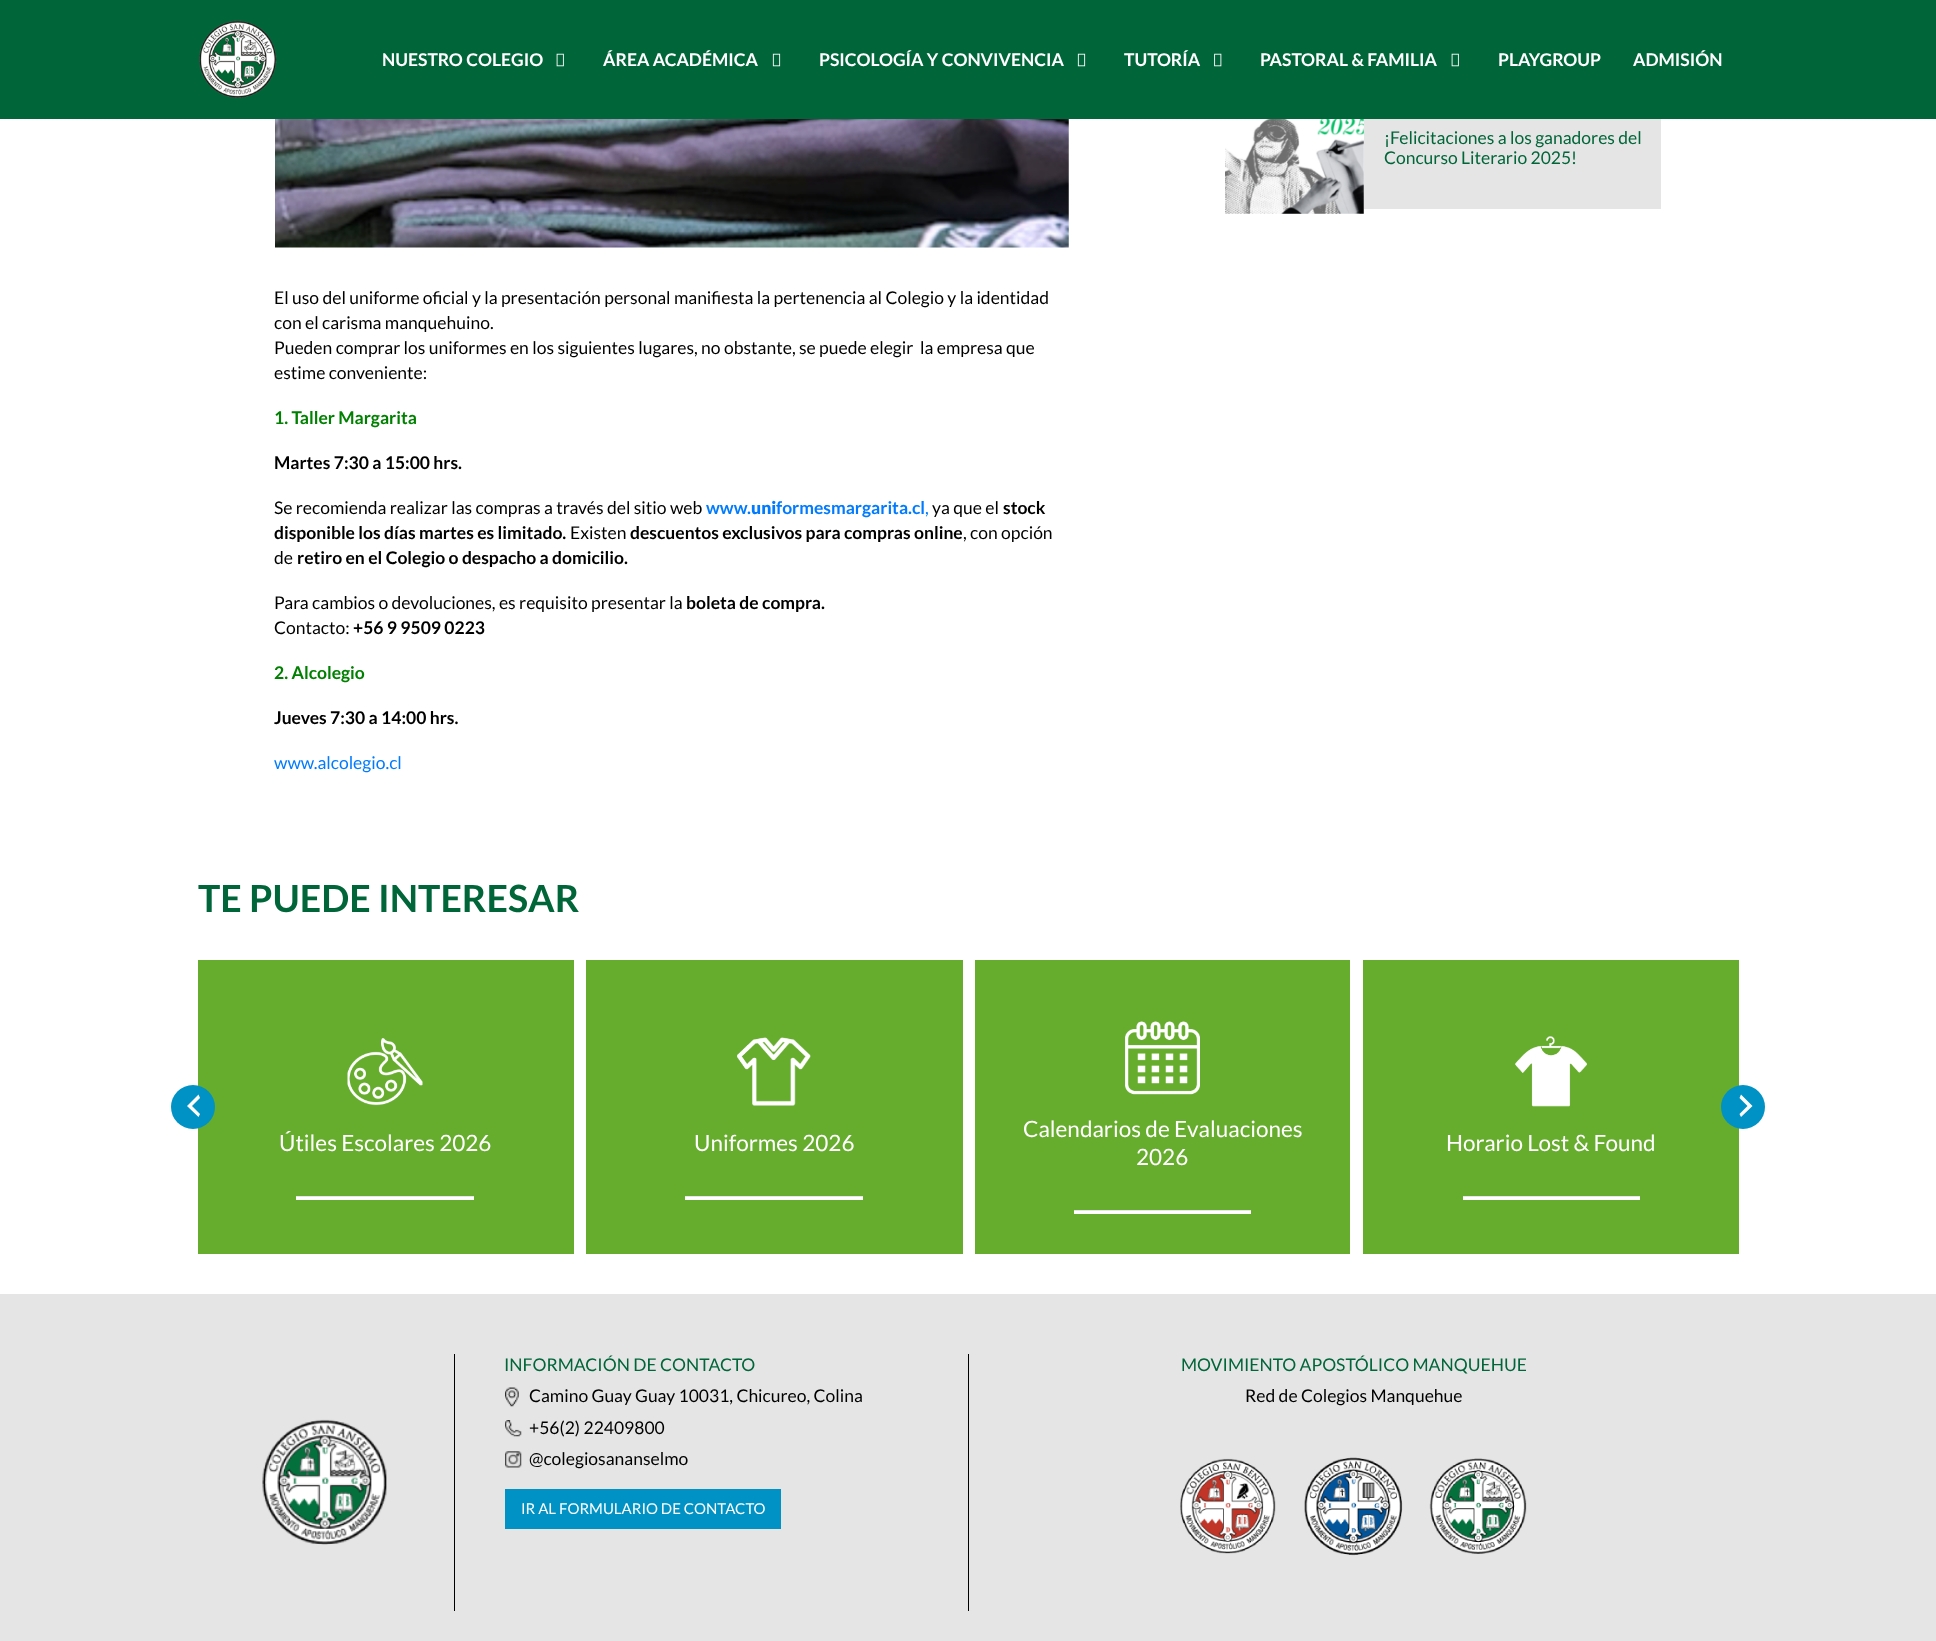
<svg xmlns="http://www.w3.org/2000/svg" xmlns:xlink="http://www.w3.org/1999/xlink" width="1936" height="1641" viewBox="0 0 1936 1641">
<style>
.cls-1{font:bold 17.5px Lato;fill:#ffffff}
.cls-2{font:17.5px Lato;fill:#006639}
.cls-3{font:17.5px Lato;fill:#000000}
.cls-4{font:bold 17.5px Lato;fill:#008000}
.cls-5{font:bold 17.5px Lato;fill:#000000}
.cls-6{font:bold 17.5px Lato;fill:#007bff}
.cls-7{font:900 17.5px Lato;fill:#007bff}
.cls-8{font:17.5px Lato;fill:#007bff}
.cls-9{font:bold 37.5px Lato;fill:#006639}
.cls-10{font:22.5px Lato;fill:#ffffff}
.cls-11{font:15px Lato;fill:#ffffff}
</style>
<rect width="100%" height="100%" fill="#ffffff"/>
<rect fill="#006639" x="0" y="0" width="1936" height="119"/>
<image xlink:href="image0.png" x="199" y="20" width="78" height="79"/>
<image xlink:href="image1.png" x="556" y="53" width="8" height="14"/>
<image xlink:href="image2.png" x="772" y="53" width="9" height="14"/>
<image xlink:href="image2.png" x="1077" y="53" width="9" height="14"/>
<image xlink:href="image3.png" x="1214" y="53" width="8" height="14"/>
<image xlink:href="image1.png" x="1451" y="53" width="8" height="14"/>
<image xlink:href="image4.png" x="1225" y="119" width="139" height="95"/>
<rect fill="#e5e5e5" x="1364" y="119" width="297" height="90"/>
<image xlink:href="image5.png" x="275" y="119" width="794" height="129"/>
<rect fill="#66ac2d" x="198" y="960" width="376" height="294"/>
<circle fill="#0092c5" cx="193" cy="1107" r="22"/>
<path fill="#ffffff" d="M200 1098L192 1106L200 1114L198.5 1117L187 1106L198.5 1094.5Z"/>
<rect fill="#66ac2d" x="1363" y="960" width="376" height="294"/>
<circle fill="#0092c5" cx="1743" cy="1107" r="22"/>
<path fill="#ffffff" d="M1739.5 1114L1747.5 1106L1739.5 1098L1741 1094.5L1752.5 1106L1741 1117Z"/>
<image xlink:href="image6.png" x="347" y="1038" width="76" height="68"/>
<rect fill="#ffffff" x="296" y="1197" width="178" height="3"/>
<rect fill="#e6e6e6" x="296" y="1196" width="178" height="1"/>
<rect fill="#66ac2d" x="586" y="960" width="377" height="294"/>
<image xlink:href="image7.png" x="737" y="1037" width="74" height="69"/>
<rect fill="#ffffff" x="685" y="1197" width="178" height="3"/>
<rect fill="#e6e6e6" x="685" y="1196" width="178" height="1"/>
<rect fill="#66ac2d" x="975" y="960" width="375" height="294"/>
<image xlink:href="image8.png" x="1125" y="1021" width="75" height="74"/>
<rect fill="#ffffff" x="1074" y="1211" width="177" height="3"/>
<rect fill="#e6e6e6" x="1074" y="1210" width="177" height="1"/>
<image xlink:href="image9.png" x="1515" y="1036" width="72" height="71"/>
<rect fill="#ffffff" x="1463" y="1197" width="177" height="3"/>
<rect fill="#e6e6e6" x="1463" y="1196" width="177" height="1"/>
<rect fill="#e5e5e5" x="0" y="1294" width="1936" height="347"/>
<rect fill="#000000" x="454" y="1354" width="1" height="257"/>
<image xlink:href="image10.png" x="262" y="1419" width="125" height="126"/>
<rect fill="#000000" x="968" y="1354" width="1" height="257"/>
<image xlink:href="image11.png" x="505" y="1387" width="14" height="20"/>
<image xlink:href="image12.png" x="505" y="1420" width="17" height="17"/>
<image xlink:href="image13.png" x="505" y="1451" width="17" height="17"/>
<rect fill="#0092c5" x="505" y="1489" width="276" height="40"/>
<image xlink:href="image14.png" x="1180" y="1458" width="96" height="96"/>
<image xlink:href="image15.png" x="1304" y="1457" width="99" height="99"/>
<image xlink:href="image16.png" x="1429" y="1458" width="98" height="96"/>
<text class="cls-1" x="382" y="66">NUESTRO COLEGIO</text>
<text class="cls-1" x="603" y="66">ÁREA ACADÉMICA</text>
<text class="cls-1" x="819" y="66">PSICOLOGÍA Y CONVIVENCIA</text>
<text class="cls-1" x="1124" y="66">TUTORÍA</text>
<text class="cls-1" x="1260" y="66">PASTORAL &amp; FAMILIA</text>
<text class="cls-1" x="1498" y="66">PLAYGROUP</text>
<text class="cls-1" x="1633" y="66">ADMISIÓN</text>
<text class="cls-2"><tspan x="1384" y="144">¡Felicitaciones a los ganadores del</tspan><tspan x="1384" y="164">Concurso Literario 2025!</tspan></text>
<text class="cls-3" xml:space="preserve"><tspan x="274" y="304">El uso del uniforme oficial y la presentación personal manifiesta la pertenencia al Colegio y la identidad</tspan><tspan x="274" y="329">con el carisma manquehuino.</tspan><tspan x="274" y="354">Pueden comprar los uniformes en los siguientes lugares, no obstante, se puede elegir  la empresa que</tspan><tspan x="274" y="379">estime conveniente:</tspan></text>
<text class="cls-4" x="274" y="424">1. Taller Margarita</text>
<text class="cls-5" x="274" y="469">Martes 7:30 a 15:00 hrs.</text>
<text class="cls-3" x="274" y="514">Se recomienda realizar las compras a través del sitio web</text>
<text class="cls-6" x="706" y="514">www.</text>
<text class="cls-7" x="751" y="514">uni</text>
<text class="cls-6" x="776" y="514">formesmargarita.cl</text>
<text class="cls-8" x="925" y="514">,</text>
<text class="cls-3" x="932" y="514">ya que el</text>
<text class="cls-5" x="1003" y="514">stock</text>
<text class="cls-5" x="274" y="539">disponible los días martes es limitado.</text>
<text class="cls-3" x="570" y="539">Existen</text>
<text class="cls-5" x="630" y="539">descuentos exclusivos para compras online</text>
<text class="cls-3" x="963" y="539">, con opción</text>
<text class="cls-3" x="274" y="564">de</text>
<text class="cls-5" x="297" y="564">retiro en el Colegio o despacho a domicilio.</text>
<text class="cls-3" x="274" y="609">Para cambios o devoluciones, es requisito presentar la</text>
<text class="cls-5" x="686" y="609">boleta de compra.</text>
<text class="cls-3" x="274" y="634">Contacto:</text>
<text class="cls-5" x="353" y="634">+56 9 9509 0223</text>
<text class="cls-4" x="274" y="679">2. Alcolegio</text>
<text class="cls-5" x="274" y="724">Jueves 7:30 a 14:00 hrs.</text>
<text class="cls-8" x="274" y="769">www.alcolegio.cl</text>
<text class="cls-9" x="198" y="912">TE PUEDE INTERESAR</text>
<text class="cls-10" x="279" y="1151">Útiles Escolares 2026</text>
<text class="cls-10" x="694" y="1151">Uniformes 2026</text>
<text class="cls-10" x="1023" y="1137">Calendarios de Evaluaciones</text>
<text class="cls-10" x="1136" y="1165">2026</text>
<text class="cls-10" x="1446" y="1151">Horario Lost &amp; Found</text>
<text class="cls-2" x="504" y="1371">INFORMACIÓN DE CONTACTO</text>
<text class="cls-3"><tspan x="529" y="1402">Camino Guay Guay 10031, Chicureo, Colina</tspan><tspan x="529" y="1434">+56(2) 22409800</tspan><tspan x="529" y="1465">@colegiosananselmo</tspan></text>
<text class="cls-11" x="521" y="1514">IR AL FORMULARIO DE CONTACTO</text>
<text class="cls-2" x="1181" y="1371">MOVIMIENTO APOSTÓLICO MANQUEHUE</text>
<text class="cls-3" x="1245" y="1402">Red de Colegios Manquehue</text>
</svg>
